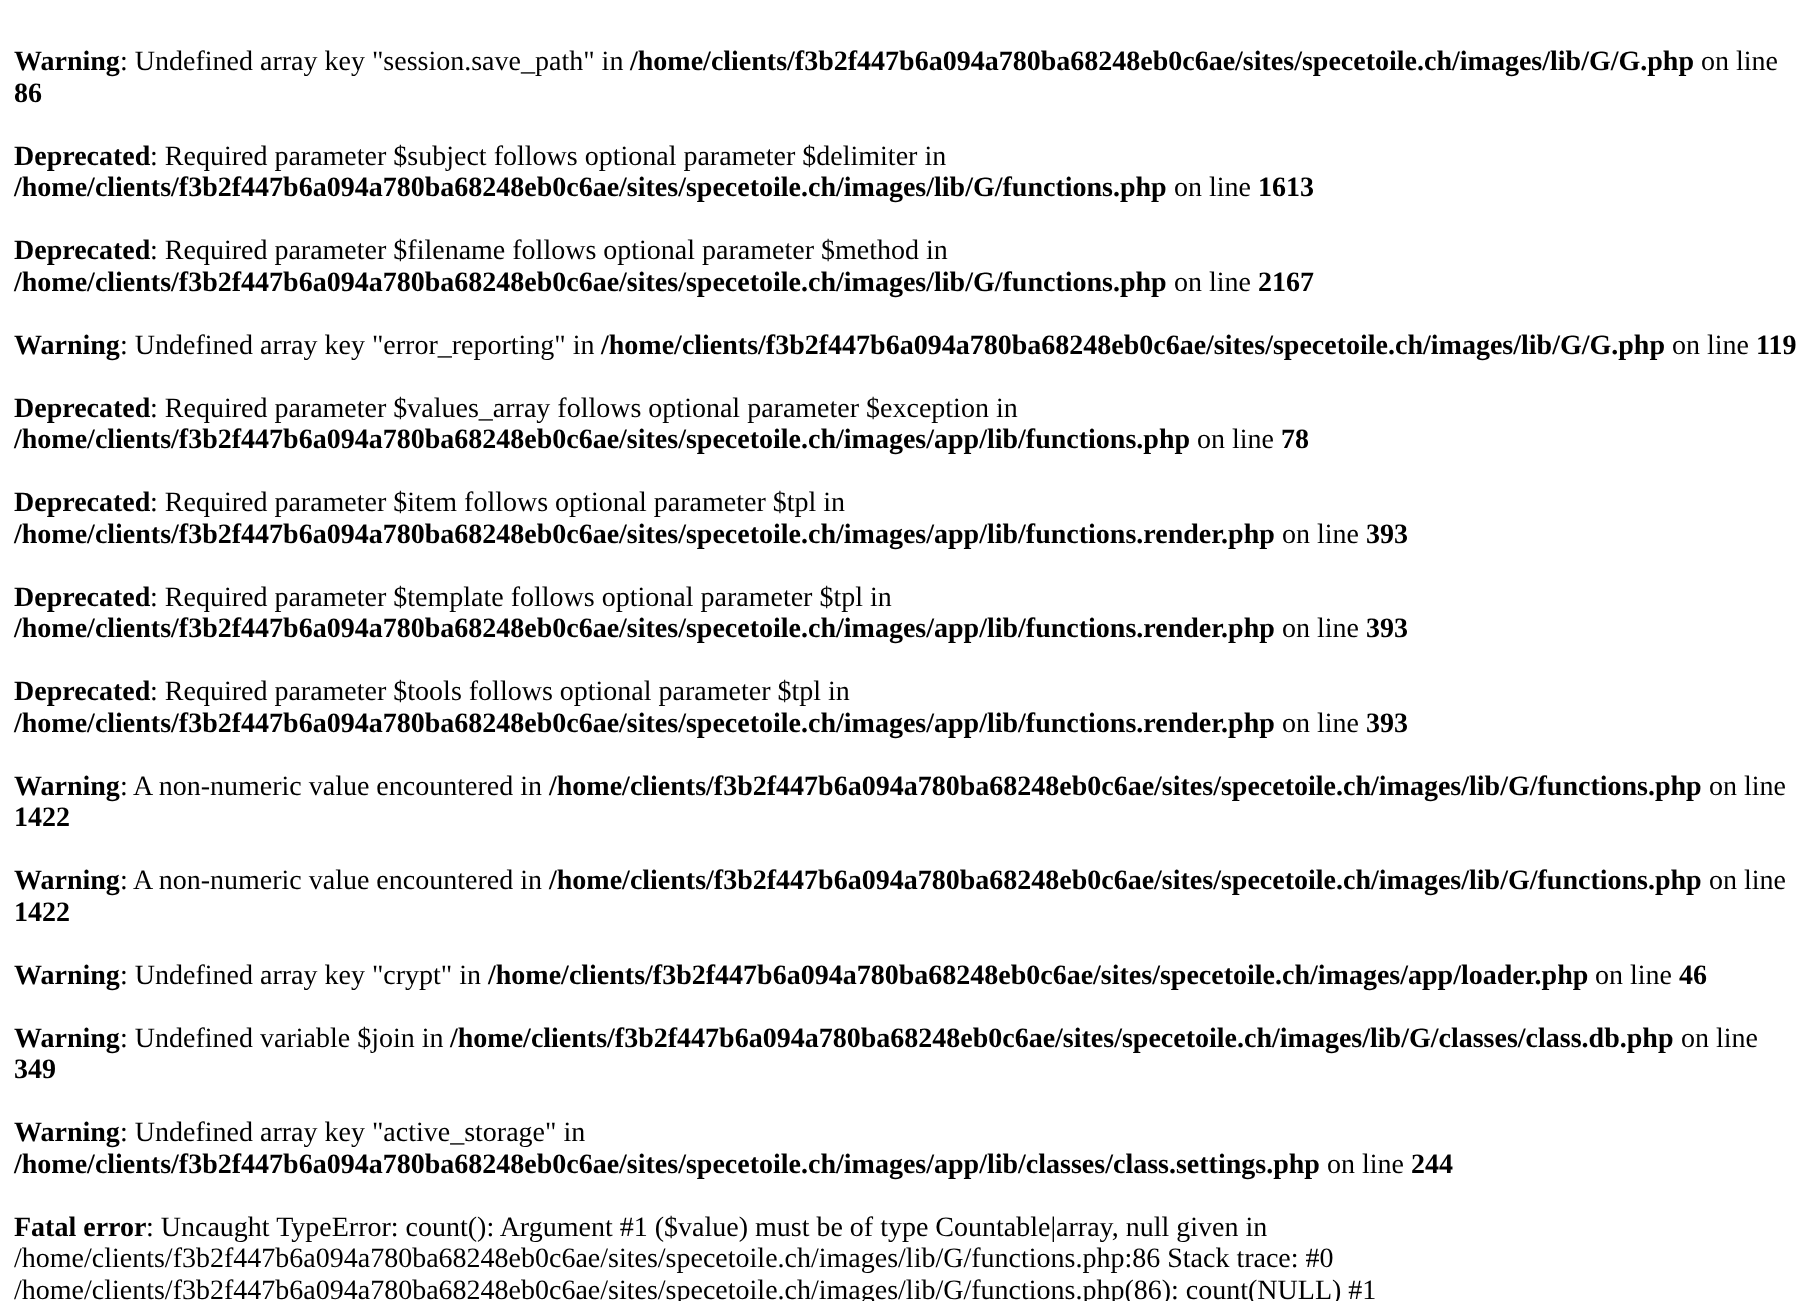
<svg xmlns="http://www.w3.org/2000/svg" xmlns:xlink="http://www.w3.org/1999/xlink" width="1812" height="1301" viewBox="0 0 1812 1301">
<style>
.cls-1{font:bold 28px Liberation Serif;fill:#000000}
.cls-2{font:28px Liberation Serif;fill:#000000}
</style>
<rect width="100%" height="100%" fill="#ffffff"/>
<text class="cls-1" x="14" y="70">Warning</text>
<text class="cls-2" x="120" y="70">: Undefined array key "session.save_path" in</text>
<text class="cls-1" x="630" y="70">/home/clients/f3b2f447b6a094a780ba68248eb0c6ae/sites/specetoile.ch/images/lib/G/G.php</text>
<text class="cls-2" x="1701" y="70">on line</text>
<text class="cls-1" x="14" y="102">86</text>
<text class="cls-1" x="14" y="165">Deprecated</text>
<text class="cls-2" x="150" y="165">: Required parameter $subject follows optional parameter $delimiter in</text>
<text class="cls-1" x="14" y="196">/home/clients/f3b2f447b6a094a780ba68248eb0c6ae/sites/specetoile.ch/images/lib/G/functions.php</text>
<text class="cls-2" x="1174" y="196">on line</text>
<text class="cls-1" x="1258" y="196">1613</text>
<text class="cls-1" x="14" y="259">Deprecated</text>
<text class="cls-2" x="150" y="259">: Required parameter $filename follows optional parameter $method in</text>
<text class="cls-1" x="14" y="291">/home/clients/f3b2f447b6a094a780ba68248eb0c6ae/sites/specetoile.ch/images/lib/G/functions.php</text>
<text class="cls-2" x="1174" y="291">on line</text>
<text class="cls-1" x="1258" y="291">2167</text>
<text class="cls-1" x="14" y="354">Warning</text>
<text class="cls-2" x="120" y="354">: Undefined array key "error_reporting" in</text>
<text class="cls-1" x="601" y="354">/home/clients/f3b2f447b6a094a780ba68248eb0c6ae/sites/specetoile.ch/images/lib/G/G.php</text>
<text class="cls-2" x="1672" y="354">on line</text>
<text class="cls-1" x="1756" y="354">119</text>
<text class="cls-1" x="14" y="417">Deprecated</text>
<text class="cls-2" x="150" y="417">: Required parameter $values_array follows optional parameter $exception in</text>
<text class="cls-1" x="14" y="448">/home/clients/f3b2f447b6a094a780ba68248eb0c6ae/sites/specetoile.ch/images/app/lib/functions.php</text>
<text class="cls-2" x="1197" y="448">on line</text>
<text class="cls-1" x="1281" y="448">78</text>
<text class="cls-1" x="14" y="511">Deprecated</text>
<text class="cls-2" x="150" y="511">: Required parameter $item follows optional parameter $tpl in</text>
<text class="cls-1" x="14" y="543">/home/clients/f3b2f447b6a094a780ba68248eb0c6ae/sites/specetoile.ch/images/app/lib/functions.render.php</text>
<text class="cls-2" x="1282" y="543">on line</text>
<text class="cls-1" x="1366" y="543">393</text>
<text class="cls-1" x="14" y="606">Deprecated</text>
<text class="cls-2" x="150" y="606">: Required parameter $template follows optional parameter $tpl in</text>
<text class="cls-1" x="14" y="637">/home/clients/f3b2f447b6a094a780ba68248eb0c6ae/sites/specetoile.ch/images/app/lib/functions.render.php</text>
<text class="cls-2" x="1282" y="637">on line</text>
<text class="cls-1" x="1366" y="637">393</text>
<text class="cls-1" x="14" y="700">Deprecated</text>
<text class="cls-2" x="150" y="700">: Required parameter $tools follows optional parameter $tpl in</text>
<text class="cls-1" x="14" y="732">/home/clients/f3b2f447b6a094a780ba68248eb0c6ae/sites/specetoile.ch/images/app/lib/functions.render.php</text>
<text class="cls-2" x="1282" y="732">on line</text>
<text class="cls-1" x="1366" y="732">393</text>
<text class="cls-1" x="14" y="795">Warning</text>
<text class="cls-2" x="120" y="795">:</text>
<text class="cls-2" x="133" y="795">A non-numeric value encountered in</text>
<text class="cls-1" x="549" y="795">/home/clients/f3b2f447b6a094a780ba68248eb0c6ae/sites/specetoile.ch/images/lib/G/functions.php</text>
<text class="cls-2" x="1709" y="795">on line</text>
<text class="cls-1" x="14" y="826">1422</text>
<text class="cls-1" x="14" y="889">Warning</text>
<text class="cls-2" x="120" y="889">:</text>
<text class="cls-2" x="133" y="889">A non-numeric value encountered in</text>
<text class="cls-1" x="549" y="889">/home/clients/f3b2f447b6a094a780ba68248eb0c6ae/sites/specetoile.ch/images/lib/G/functions.php</text>
<text class="cls-2" x="1709" y="889">on line</text>
<text class="cls-1" x="14" y="921">1422</text>
<text class="cls-1" x="14" y="984">Warning</text>
<text class="cls-2" x="120" y="984">: Undefined array key "crypt" in</text>
<text class="cls-1" x="488" y="984">/home/clients/f3b2f447b6a094a780ba68248eb0c6ae/sites/specetoile.ch/images/app/loader.php</text>
<text class="cls-2" x="1595" y="984">on line</text>
<text class="cls-1" x="1679" y="984">46</text>
<text class="cls-1" x="14" y="1047">Warning</text>
<text class="cls-2" x="120" y="1047">: Undefined variable $join in</text>
<text class="cls-1" x="450" y="1047">/home/clients/f3b2f447b6a094a780ba68248eb0c6ae/sites/specetoile.ch/images/lib/G/classes/class.db.php</text>
<text class="cls-2" x="1681" y="1047">on line</text>
<text class="cls-1" x="14" y="1078">349</text>
<text class="cls-1" x="14" y="1141">Warning</text>
<text class="cls-2" x="120" y="1141">: Undefined array key "active_storage" in</text>
<text class="cls-1" x="14" y="1173">/home/clients/f3b2f447b6a094a780ba68248eb0c6ae/sites/specetoile.ch/images/app/lib/classes/class.settings.php</text>
<text class="cls-2" x="1327" y="1173">on line</text>
<text class="cls-1" x="1411" y="1173">244</text>
<text class="cls-1" x="14" y="1236">Fatal error</text>
<text class="cls-2" x="146" y="1236">: Uncaught TypeError: count(): Argument #1 ($value) must be of type Countable|array, null given in</text>
<text class="cls-2"><tspan x="14" y="1267">/home/clients/f3b2f447b6a094a780ba68248eb0c6ae/sites/specetoile.ch/images/lib/G/functions.php:86 Stack trace: #0</tspan><tspan x="14" y="1299">/home/clients/f3b2f447b6a094a780ba68248eb0c6ae/sites/specetoile.ch/images/lib/G/functions.php(86): count(NULL) #1</tspan></text>
</svg>
